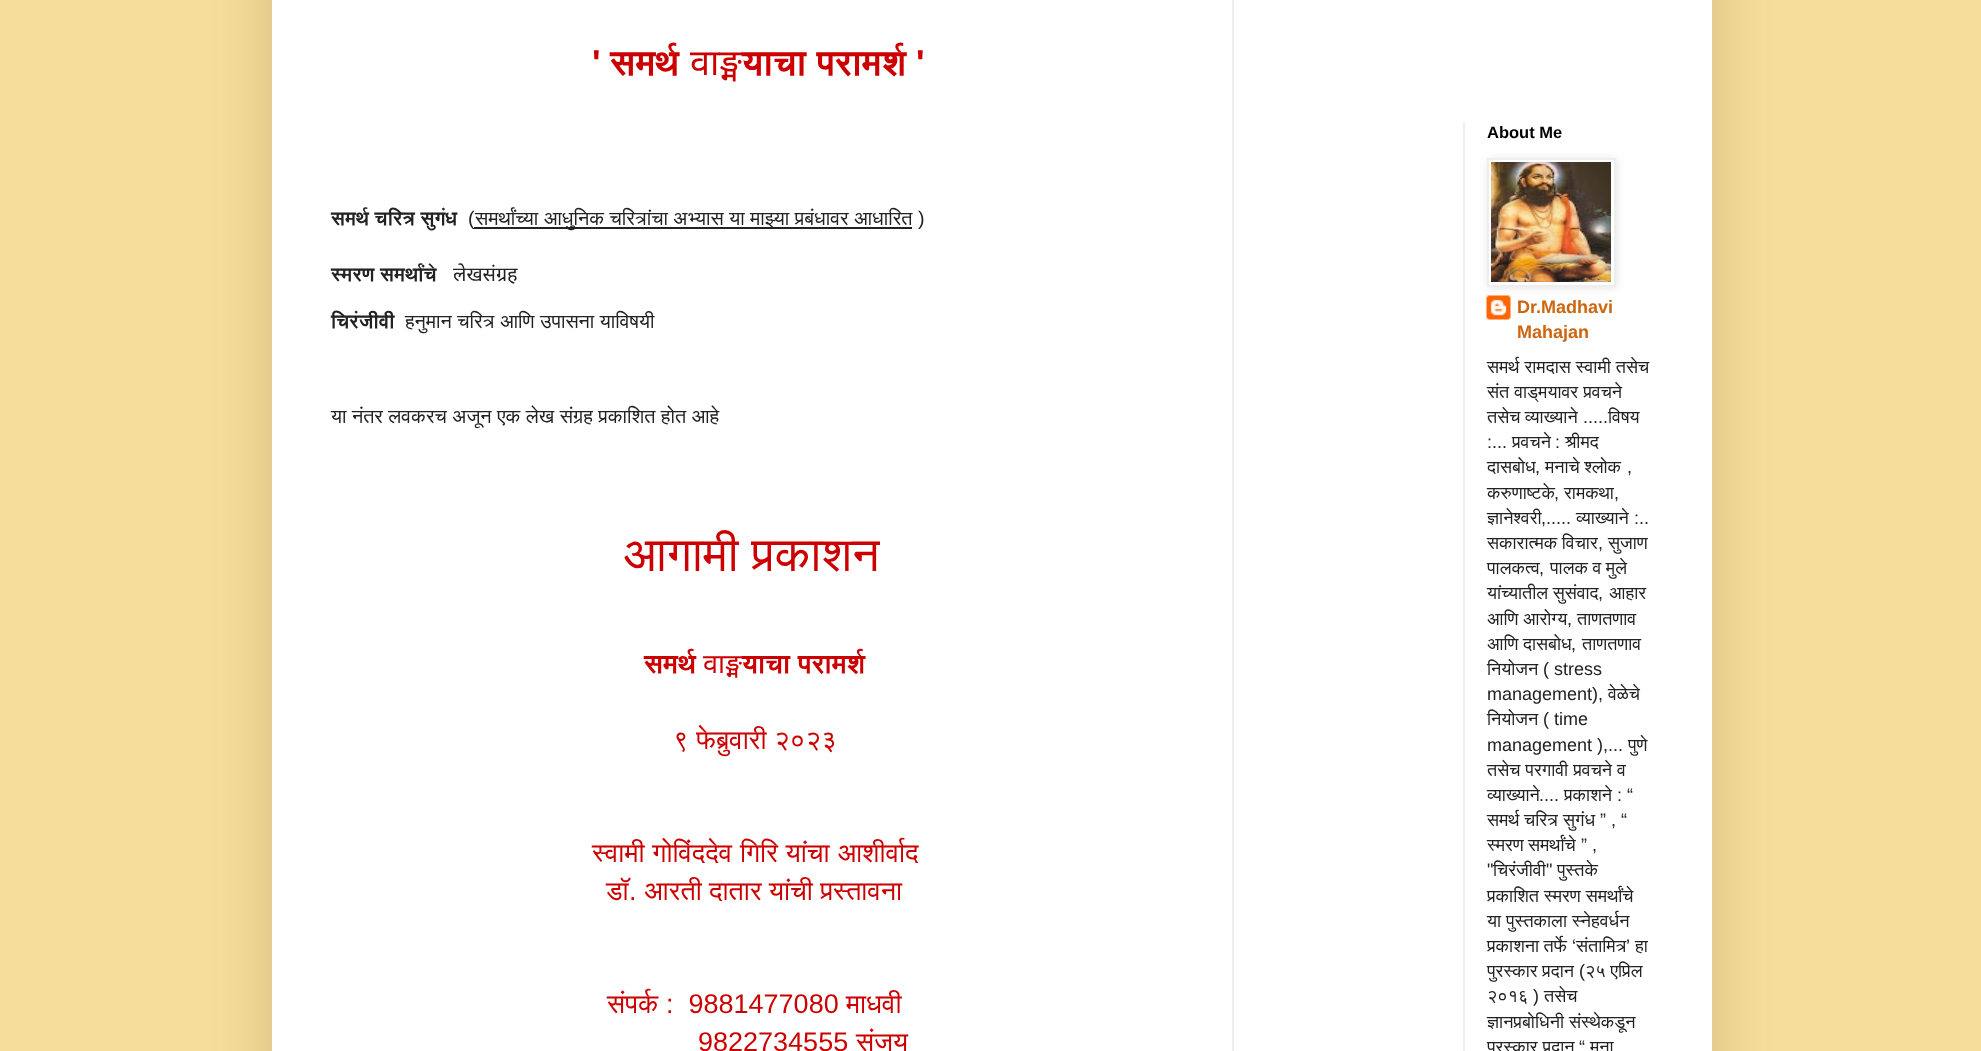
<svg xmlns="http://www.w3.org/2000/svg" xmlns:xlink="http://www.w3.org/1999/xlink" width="1981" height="1051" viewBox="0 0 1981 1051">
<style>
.cls-1{font:bold 36px Liberation Sans;fill:#cc0000}
.cls-2{font:600 36px FreeSans;fill:#cc0000}
.cls-3{font:36px Noto Sans;fill:#cc0000}
.cls-4{font:600 19.8px FreeSans;fill:#222222}
.cls-5{font:19.8px Liberation Sans;fill:#222222}
.cls-6{font:19.8px FreeSans;fill:#222222}
.cls-7{font:19.8px Noto Sans;fill:#222222}
.cls-8{font:48px FreeSans;fill:#cc0000}
.cls-9{font:600 27px FreeSans;fill:#cc0000}
.cls-10{font:27px Noto Sans;fill:#cc0000}
.cls-11{font:27px FreeSans;fill:#cc0000}
.cls-12{font:27px Liberation Sans;fill:#cc0000}
.cls-13{font:bold 16.5px Liberation Sans;fill:#000000}
.cls-14{font:bold 18px Liberation Sans;fill:#cc6611}
.cls-15{font:18px FreeSans;fill:#222222}
.cls-16{font:18px Liberation Sans;fill:#222222}
</style>
<rect width="100%" height="100%" fill="#f6dd99"/>
<rect fill="#000000" fill-opacity="0.15" filter="blur(30px)" x="272" y="-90" width="1440" height="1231"/>
<rect fill="#ffffff" x="272" y="0" width="1440" height="1051"/>
<rect fill="#eeeeee" x="1232" y="0" width="2" height="1051"/>
<rect fill="#222222" x="474" y="227" width="438" height="2"/>
<rect fill="#eeeeee" x="1463" y="123" width="2" height="928"/>
<image xlink:href="image1.png" x="1486" y="295" width="25" height="25"/>
<rect fill="#000000" fill-opacity="0.1" filter="blur(4px)" x="1488" y="159" width="129" height="129"/>
<rect fill="#ffffff" stroke="#eeeeee" stroke-width="2" x="1488" y="159" width="127" height="127"/>
<image xlink:href="image0.png" x="1491" y="162" width="120" height="120"/>
<text class="cls-1" x="592" y="75">'</text>
<text class="cls-2" x="610" y="75">समर्थ</text>
<text class="cls-3" x="690" y="75">वाङ्म</text>
<text class="cls-2" x="742" y="75">याचा परामर्श</text>
<text class="cls-1" x="916" y="75">'</text>
<text class="cls-4" x="331" y="225">समर्थ चरित्र सुगंध</text>
<text class="cls-5" x="468" y="225">(</text>
<text class="cls-6" x="475" y="225" word-spacing="0.5">समर्थांच्या आधुनिक चरित्रांचा अभ्यास या माझ्या प्रबंधावर आधारित</text>
<text class="cls-5" x="918" y="225">)</text>
<text class="cls-4" x="331" y="281">स्मरण समर्थांचे</text>
<text class="cls-7" x="453" y="281">लेखसंग्रह</text>
<text class="cls-4" x="331" y="328">चिरंजीवी</text>
<text class="cls-6" x="405" y="328" word-spacing="0.5">हनुमान चरित्र आणि उपासना याविषयी</text>
<text class="cls-6" x="331" y="423" word-spacing="0.5">या नंतर लवकरच अजून एक लेख संग्रह प्रकाशित होत आहे</text>
<text class="cls-8" x="623" y="571" word-spacing="1">आगामी प्रकाशन</text>
<text class="cls-9" x="644" y="673">समर्थ</text>
<text class="cls-10" x="703" y="673">वाङ्म</text>
<text class="cls-9" x="742" y="673">याचा परामर्श</text>
<text class="cls-11" x="673" y="749" word-spacing="1">९ फेब्रुवारी २०२३</text>
<text class="cls-11" x="592" y="862" word-spacing="1">स्वामी गोविंददेव गिरि यांचा आशीर्वाद</text>
<text class="cls-11" x="606" y="900">डॉ</text>
<text class="cls-12" x="629" y="900">.</text>
<text class="cls-11" x="644" y="900" word-spacing="0.5">आरती दातार यांची प्रस्तावना</text>
<text class="cls-11" x="607" y="1013">संपर्क</text>
<text class="cls-12" xml:space="preserve" x="666" y="1013">:  9881477080</text>
<text class="cls-11" x="846" y="1013">माधवी</text>
<text class="cls-12" x="698" y="1051">9822734555</text>
<text class="cls-11" x="856" y="1051">संजय</text>
<text class="cls-13" x="1487" y="138">About Me</text>
<text class="cls-14"><tspan x="1517" y="313">Dr.Madhavi</tspan><tspan x="1517" y="338">Mahajan</tspan></text>
<text class="cls-15"><tspan x="1487" y="373" word-spacing="0.5">समर्थ रामदास स्वामी तसेच</tspan><tspan x="1487" y="398" word-spacing="0.5">संत वाड्मयावर प्रवचने</tspan><tspan x="1487" y="423">तसेच व्याख्याने</tspan></text>
<text class="cls-16" x="1583" y="423">.....</text>
<text class="cls-15" x="1608" y="423">विषय</text>
<text class="cls-16" x="1487" y="448">:...</text>
<text class="cls-15" x="1512" y="448">प्रवचने</text>
<text class="cls-16" x="1555" y="448">:</text>
<text class="cls-15" x="1565" y="448">श्रीमद</text>
<text class="cls-15" x="1487" y="473">दासबोध</text>
<text class="cls-16" x="1535" y="473">,</text>
<text class="cls-15" x="1545" y="473">मनाचे श्लोक</text>
<text class="cls-16" x="1627" y="473">,</text>
<text class="cls-15" x="1487" y="499">करुणाष्टके</text>
<text class="cls-16" x="1554" y="499">,</text>
<text class="cls-15" x="1564" y="499">रामकथा</text>
<text class="cls-16" x="1614" y="499">,</text>
<text class="cls-15" x="1487" y="524">ज्ञानेश्वरी</text>
<text class="cls-15" x="1576" y="524">व्याख्याने</text>
<text class="cls-16" x="1634" y="524">:..</text>
<text class="cls-16" x="1541" y="524">,.....</text>
<text class="cls-15" x="1487" y="549">सकारात्मक विचार</text>
<text class="cls-16" x="1598" y="549">,</text>
<text class="cls-15" x="1608" y="549">सुजाण</text>
<text class="cls-15" x="1487" y="574">पालकत्व</text>
<text class="cls-16" x="1539" y="574">,</text>
<text class="cls-15" x="1550" y="574">पालक व मुले</text>
<text class="cls-15" x="1487" y="599">यांच्यातील सुसंवाद</text>
<text class="cls-16" x="1598" y="599">,</text>
<text class="cls-15" x="1609" y="599">आहार</text>
<text class="cls-15" x="1487" y="625">आणि आरोग्य</text>
<text class="cls-15" x="1577" y="625">ताणतणाव</text>
<text class="cls-16" x="1567" y="625">,</text>
<text class="cls-15" x="1487" y="650">आणि दासबोध</text>
<text class="cls-15" x="1582" y="650">ताणतणाव</text>
<text class="cls-16" x="1571" y="650">,</text>
<text class="cls-15" x="1487" y="675">नियोजन</text>
<text class="cls-16" x="1543" y="675">( stress</text>
<text class="cls-16" x="1487" y="700">management),</text>
<text class="cls-15" x="1608" y="700">वेळेचे</text>
<text class="cls-15" x="1487" y="725">नियोजन</text>
<text class="cls-16" x="1543" y="725">( time</text>
<text class="cls-16" x="1487" y="751">management ),...</text>
<text class="cls-15" x="1628" y="751">पुणे</text>
<text class="cls-15"><tspan x="1487" y="776" word-spacing="0.5">तसेच परगावी प्रवचने व</tspan><tspan x="1487" y="801">व्याख्याने</tspan></text>
<text class="cls-16" x="1539" y="801">....</text>
<text class="cls-15" x="1564" y="801">प्रकाशने</text>
<text class="cls-16" x="1617" y="801">: “</text>
<text class="cls-15" x="1487" y="826">समर्थ</text>
<text class="cls-15" x="1524" y="826">चरित्र</text>
<text class="cls-15" x="1563" y="826">सुगंध</text>
<text class="cls-16" x="1600" y="826">” , “</text>
<text class="cls-15" x="1487" y="851">स्मरण</text>
<text class="cls-15" x="1528" y="851">समर्थांचे</text>
<text class="cls-16" x="1581" y="851">” ,</text>
<text class="cls-16" x="1487" y="876">"</text>
<text class="cls-15" x="1493" y="876">चिरंजीवी</text>
<text class="cls-16" x="1546" y="876">"</text>
<text class="cls-15" x="1557" y="876">पुस्तके</text>
<text class="cls-15" x="1487" y="902">प्रकाशित</text>
<text class="cls-15" x="1544" y="902" word-spacing="0.5">स्मरण समर्थांचे</text>
<text class="cls-15"><tspan x="1487" y="927" word-spacing="0.5">या पुस्तकाला स्नेहवर्धन</tspan><tspan x="1487" y="952">प्रकाशना तर्फे</tspan></text>
<text class="cls-16" x="1572" y="952">‘</text>
<text class="cls-15" x="1576" y="952">संतामित्र</text>
<text class="cls-16" x="1626" y="952">’</text>
<text class="cls-15" x="1635" y="952">हा</text>
<text class="cls-15" x="1487" y="977">पुरस्कार प्रदान</text>
<text class="cls-16" x="1579" y="977">(</text>
<text class="cls-15" x="1585" y="977">२५ एप्रिल</text>
<text class="cls-15" x="1487" y="1002">२०१६</text>
<text class="cls-16" x="1533" y="1002">)</text>
<text class="cls-15" x="1544" y="1002">तसेच</text>
<text class="cls-15"><tspan x="1487" y="1028" word-spacing="0.5">ज्ञानप्रबोधिनी संस्थेकडून</tspan><tspan x="1487" y="1053" word-spacing="0.5">पुरस्कार प्रदान</tspan></text>
<text class="cls-16" x="1579" y="1053">“</text>
<text class="cls-15" x="1590" y="1053">मना</text>
</svg>
